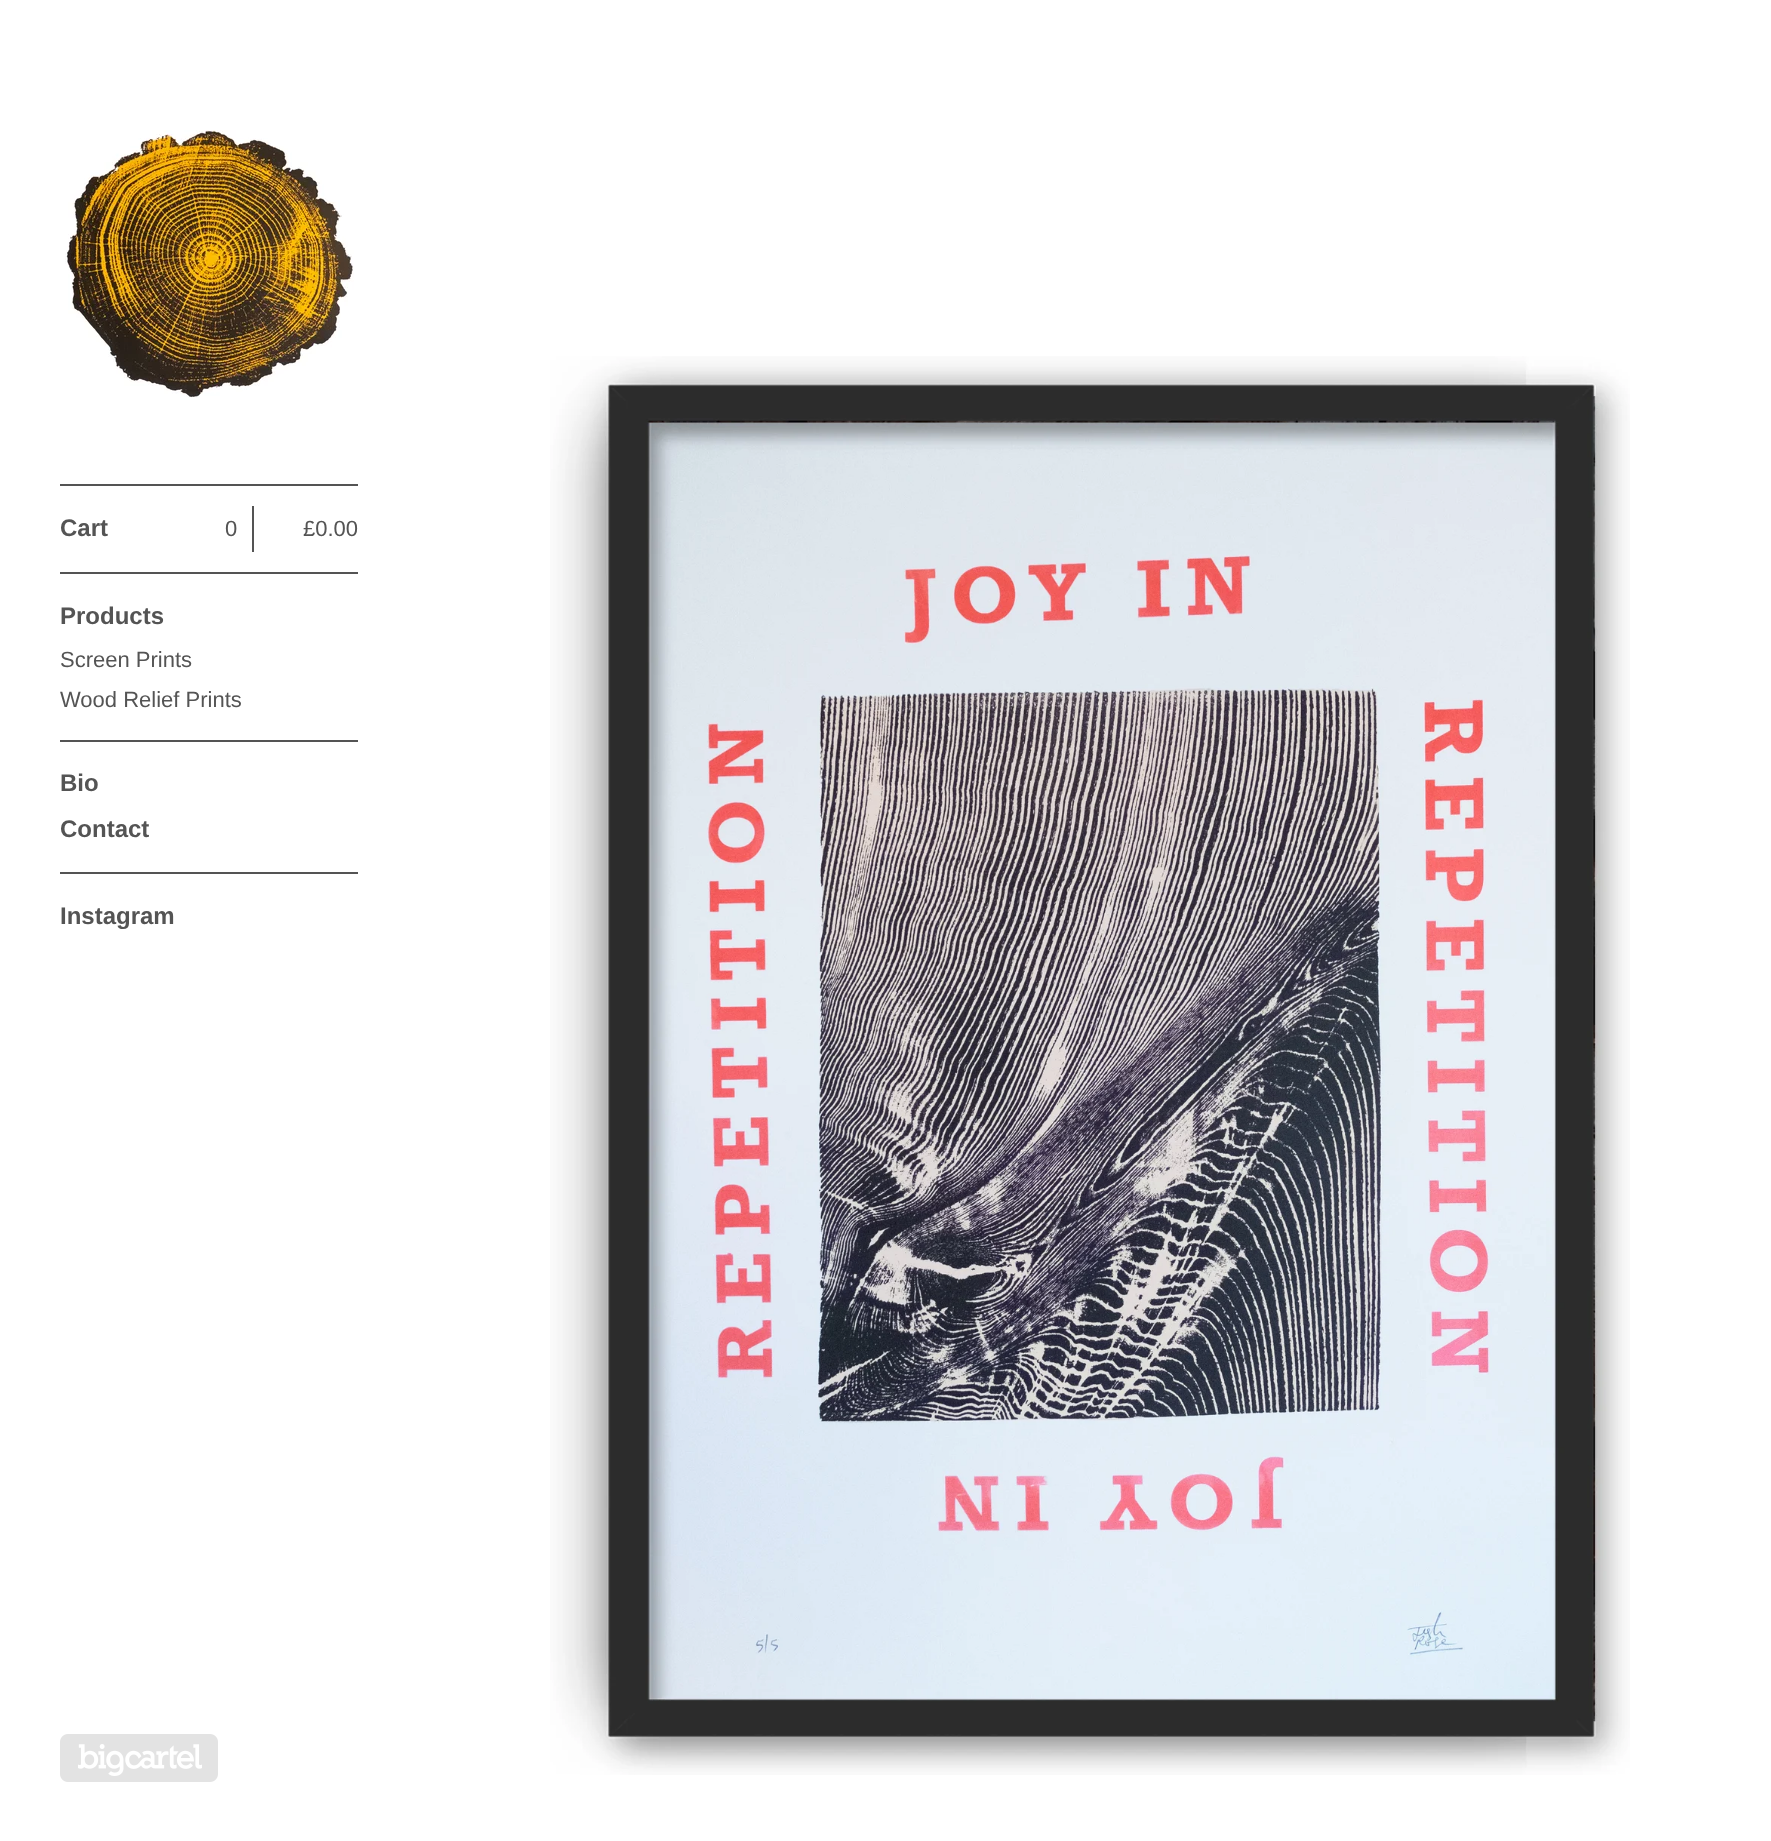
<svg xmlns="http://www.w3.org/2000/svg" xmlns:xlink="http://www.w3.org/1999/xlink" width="1771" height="1841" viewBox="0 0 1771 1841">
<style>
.cls-1{font:bold 24px Liberation Sans;fill:#545454}
.cls-2{font:22px Liberation Sans;fill:#545454}
</style>
<rect width="100%" height="100%" fill="#ffffff"/>
<image xlink:href="image0.png" x="65" y="130" width="289" height="268"/>
<rect fill="#545454" x="60" y="484" width="298" height="2"/>
<rect fill="#545454" x="252" y="506" width="2" height="46"/>
<rect fill="#545454" x="60" y="572" width="298" height="2"/>
<rect fill="#545454" x="60" y="740" width="298" height="2"/>
<rect fill="#545454" x="60" y="872" width="298" height="2"/>
<image xlink:href="image1.png" x="60" y="1734" width="158" height="48"/>
<image xlink:href="image2.png" x="550" y="356" width="1080" height="1419"/>
<text class="cls-1" x="60" y="536">Cart</text>
<text class="cls-2" x="225" y="536">0</text>
<text class="cls-2" x="303" y="536">£0.00</text>
<text class="cls-1" x="60" y="624">Products</text>
<text class="cls-2"><tspan x="60" y="667">Screen Prints</tspan><tspan x="60" y="707">Wood Relief Prints</tspan></text>
<text class="cls-1"><tspan x="60" y="791">Bio</tspan><tspan x="60" y="837">Contact</tspan></text>
<text class="cls-1" x="60" y="924">Instagram</text>
</svg>
